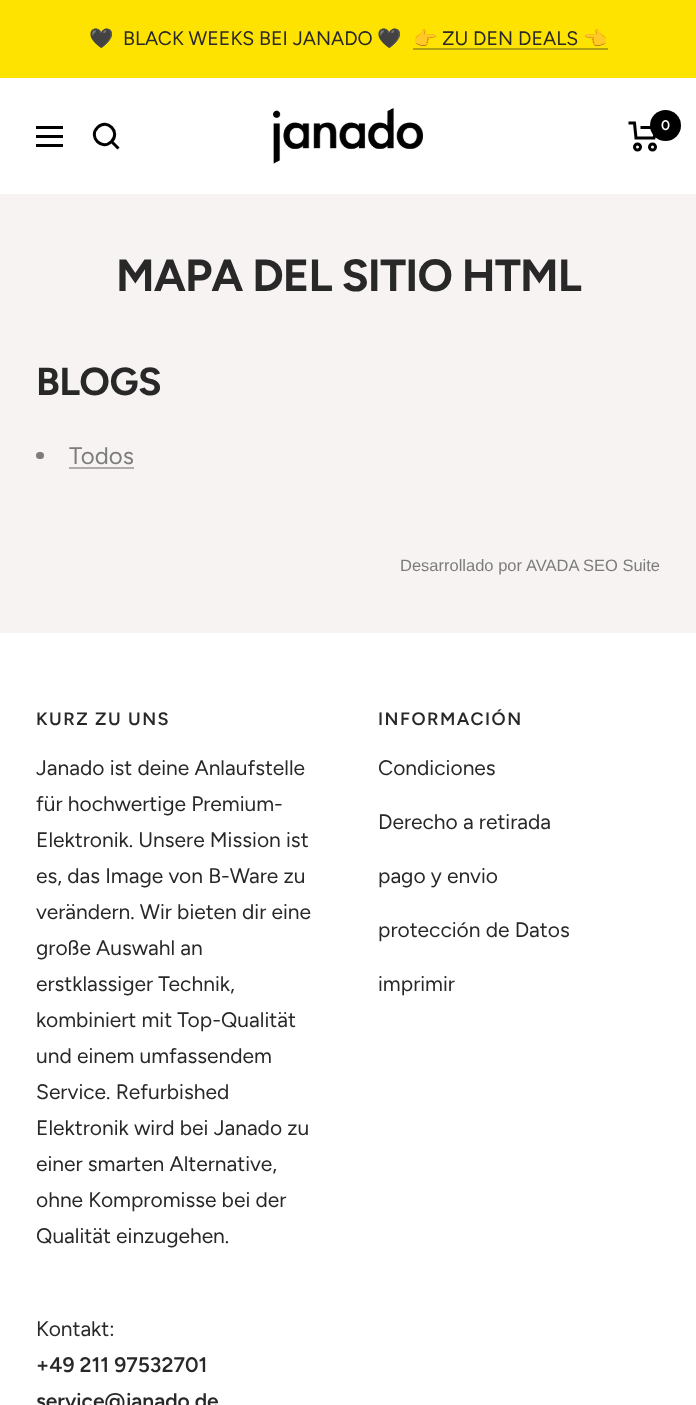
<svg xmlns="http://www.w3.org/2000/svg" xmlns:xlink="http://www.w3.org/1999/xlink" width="696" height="1405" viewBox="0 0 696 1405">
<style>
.cls-1{font:19.5px Noto Color Emoji;fill:#282828}
.cls-2{font:19.5px Figtree;fill:#282828}
.cls-3{font:600 14px Figtree;fill:#ffffff}
.cls-4{font:bold 45px Figtree;letter-spacing:-0.9px;fill:#282828}
.cls-5{font:bold 39px Figtree;letter-spacing:-0.5px;fill:#282828}
.cls-6{font:24px Figtree;fill:#7c7c7c}
.cls-7{font:16.5px Liberation Sans;fill:#7c7c7c}
.cls-8{font:600 18px Figtree;letter-spacing:1.5px;fill:#282828}
.cls-9{font:21px Figtree;fill:#282828}
.cls-10{font:600 21px Figtree;fill:#282828}
</style>
<rect width="100%" height="100%" fill="#f7f3f2"/>
<rect fill="#ffe300" x="0" y="0" width="696" height="78"/>
<rect fill="#b4a20e" x="413" y="48" width="195" height="2"/>
<rect fill="#ffffff" x="0" y="78" width="696" height="116"/>
<path fill="none" stroke="#000000" stroke-width="3" d="M36 127.5H63M36 145.5H63ZM36 136.5H63Z"/>
<path fill="none" stroke="#000000" stroke-width="3" d="M111.5 141.5C121 132 107 118 97.5 127.5C88 137 102 151 111.5 141.5ZM111.5 141.5L118.5 148.5"/>
<image xlink:href="image0.png" x="273" y="108" width="150" height="56"/>
<path fill="none" stroke="#000000" stroke-width="3" d="M628.5 123H634.5L636 138H654L657 127.5H640.5"/>
<circle fill="none" stroke="#000000" stroke-width="3" cx="637.5" cy="147" r="3"/>
<circle fill="none" stroke="#000000" stroke-width="3" cx="652.5" cy="147" r="3"/>
<circle fill="#000000" cx="665.5" cy="125.5" r="15.5"/>
<rect fill="#7c7c7c" x="36" y="452" width="8" height="7" rx="3.5"/>
<rect fill="#afacab" x="69" y="467" width="65" height="2"/>
<rect fill="#ffffff" x="0" y="633" width="696" height="772"/>
<text class="cls-1" x="89" y="45">🖤</text>
<text class="cls-2" x="123" y="45">BLACK WEEKS BEI JANADO</text>
<text class="cls-1" x="377" y="45">🖤</text>
<text class="cls-1" x="413" y="45">👉</text>
<text class="cls-2" x="442" y="45">ZU DEN DEALS</text>
<text class="cls-1" x="583" y="45">👈</text>
<text class="cls-3" x="661" y="130">0</text>
<text class="cls-4" x="116" y="291">MAPA DEL SITIO HTML</text>
<text class="cls-5" x="36" y="395">BLOGS</text>
<text class="cls-6" x="69" y="464">Todos</text>
<text class="cls-7" x="400" y="571">Desarrollado por</text>
<text class="cls-7" x="526" y="571">AVADA</text>
<text class="cls-7" x="583" y="571">SEO Suite</text>
<text class="cls-8" x="36" y="725">KURZ ZU UNS</text>
<text class="cls-9"><tspan x="36" y="775">Janado ist deine Anlaufstelle</tspan><tspan x="36" y="811">für hochwertige Premium-</tspan><tspan x="36" y="847">Elektronik. Unsere Mission ist</tspan><tspan x="36" y="883">es, das Image von B-Ware zu</tspan><tspan x="36" y="919">verändern. Wir bieten dir eine</tspan><tspan x="36" y="955">große Auswahl an</tspan><tspan x="36" y="991">erstklassiger Technik,</tspan><tspan x="36" y="1027">kombiniert mit Top-Qualität</tspan><tspan x="36" y="1063">und einem umfassendem</tspan><tspan x="36" y="1099">Service. Refurbished</tspan><tspan x="36" y="1135">Elektronik wird bei Janado zu</tspan><tspan x="36" y="1171">einer smarten Alternative,</tspan><tspan x="36" y="1207">ohne Kompromisse bei der</tspan><tspan x="36" y="1243">Qualität einzugehen.</tspan></text>
<text class="cls-9" x="36" y="1336">Kontakt:</text>
<text class="cls-10"><tspan x="36" y="1372">+49 211 97532701</tspan><tspan x="36" y="1408">service@janado.de</tspan></text>
<text class="cls-8" x="378" y="725">INFORMACIÓN</text>
<text class="cls-9" x="378" y="775">Condiciones</text>
<text class="cls-9" x="378" y="829">Derecho a retirada</text>
<text class="cls-9" x="378" y="883">pago y envio</text>
<text class="cls-9" x="378" y="937">protección de Datos</text>
<text class="cls-9" x="378" y="991">imprimir</text>
</svg>
